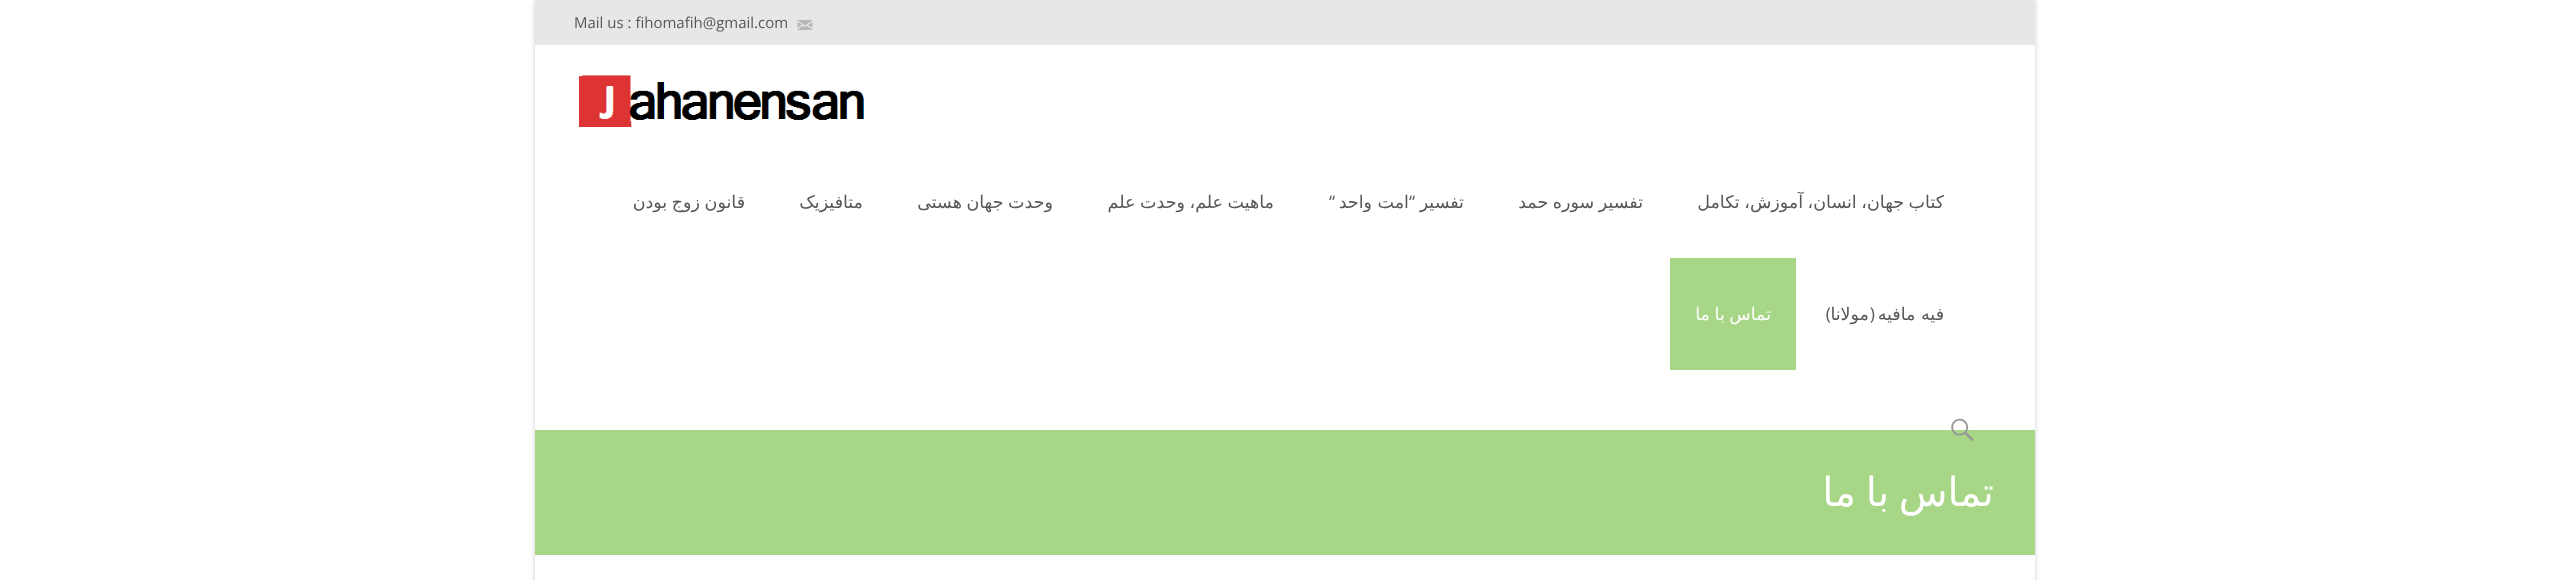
<svg xmlns="http://www.w3.org/2000/svg" xmlns:xlink="http://www.w3.org/1999/xlink" width="2568" height="580" viewBox="0 0 2568 580">
<style>
.cls-1{font:15px Open Sans;fill:#575757}
.cls-2{font:17.5px DejaVu Sans;direction:rtl;fill:#575757}
.cls-3{font:17.5px Open Sans;direction:rtl;fill:#575757}
.cls-4{font:17.5px DejaVu Sans;direction:rtl;fill:#ffffff}
.cls-5{font:40px DejaVu Sans;direction:rtl;fill:#ffffff}
</style>
<rect width="100%" height="100%" fill="#ffffff"/>
<rect fill="#000000" fill-opacity="0.1" filter="blur(2.5px)" x="535" y="0" width="1500" height="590" rx="2.5"/>
<rect fill="#000000" fill-opacity="0.1" filter="blur(2.5px)" x="535" y="0" width="1500" height="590" rx="2.5"/>
<rect fill="#ffffff" x="535" y="45" width="1500" height="535"/>
<rect fill="#e7e7e7" x="535" y="0" width="1500" height="45"/>
<image xlink:href="image0.png" x="797" y="20" width="16" height="10"/>
<image xlink:href="image1.png" x="579" y="75" width="285" height="52"/>
<rect fill="#a7d686" x="1670" y="258" width="126" height="112"/>
<rect fill="#a7d686" x="535" y="430" width="1500" height="125"/>
<image xlink:href="image2.png" x="1951" y="418" width="23" height="23"/>
<text class="cls-1" x="574" y="28">Mail us : fihomafih@gmail.com</text>
<text class="cls-2" x="1944" y="208" word-spacing="-1">کتاب جهان، انسان، آموزش، تکامل</text>
<text class="cls-2" x="1643" y="208" word-spacing="-1">تفسیر سوره حمد</text>
<text class="cls-3" x="1415" y="208">“</text>
<text class="cls-2" x="1409" y="208">امت واحد</text>
<text class="cls-3" x="1335" y="208">“</text>
<text class="cls-2" x="1464" y="208">تفسیر</text>
<text class="cls-2" x="1274" y="208" word-spacing="-1">ماهیت علم، وحدت علم</text>
<text class="cls-2" x="1053" y="208" word-spacing="-1">وحدت جهان هستی</text>
<text class="cls-2" x="863" y="208">متافیزیک</text>
<text class="cls-2" x="745" y="208" word-spacing="-1">قانون زوج بودن</text>
<text class="cls-2" x="1944" y="320">فیه مافیه</text>
<text class="cls-3" x="1875" y="320">(</text>
<text class="cls-2" x="1869" y="320">مولانا</text>
<text class="cls-3" x="1831" y="320">)</text>
<text class="cls-4" x="1771" y="320" word-spacing="-1">تماس با ما</text>
<text class="cls-5" x="1994" y="506" word-spacing="-3">تماس با ما</text>
</svg>
